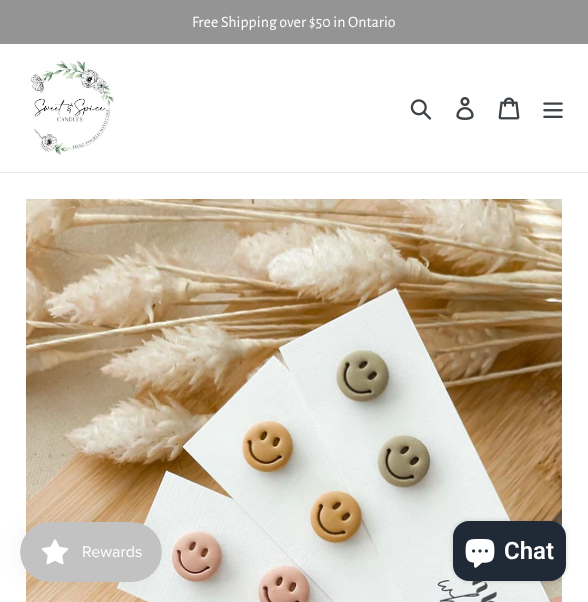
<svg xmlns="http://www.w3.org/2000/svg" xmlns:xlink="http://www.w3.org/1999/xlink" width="588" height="602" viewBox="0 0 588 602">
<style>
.cls-1{font:16px Alegreya Sans;fill:#ffffff}
.cls-2{font:600 24px Roboto;fill:#ffffff}
</style>
<rect width="100%" height="100%" fill="#ffffff"/>
<rect fill="#949494" x="0" y="0" width="588" height="44"/>
<rect fill="#e8e9eb" x="0" y="172" width="588" height="1"/>
<image xlink:href="image0.png" x="30" y="61" width="84" height="95"/>
<image xlink:href="image1.png" x="410" y="99" width="22" height="21"/>
<image xlink:href="image2.png" x="456" y="97" width="18" height="23"/>
<image xlink:href="image3.png" x="498" y="97" width="22" height="23"/>
<image xlink:href="image4.png" x="543" y="102" width="20" height="16"/>
<image xlink:href="image5.png" x="26" y="199" width="536" height="403"/>
<rect fill="#000000" fill-opacity="0.05" filter="blur(12.5px)" x="20" y="522" width="142" height="60" rx="30"/>
<image xlink:href="image6.png" x="20" y="522" width="142" height="60"/>
<rect fill="#000000" fill-opacity="0.15" filter="blur(2.5px)" x="453" y="521" width="113" height="60" rx="16"/>
<rect fill="#202a36" x="453" y="521" width="113" height="60" rx="16"/>
<image xlink:href="image7.png" x="465" y="539" width="30" height="29"/>
<text class="cls-1" x="192" y="27">Free Shipping over $50 in Ontario</text>
<text class="cls-2" x="504" y="559">Chat</text>
</svg>
